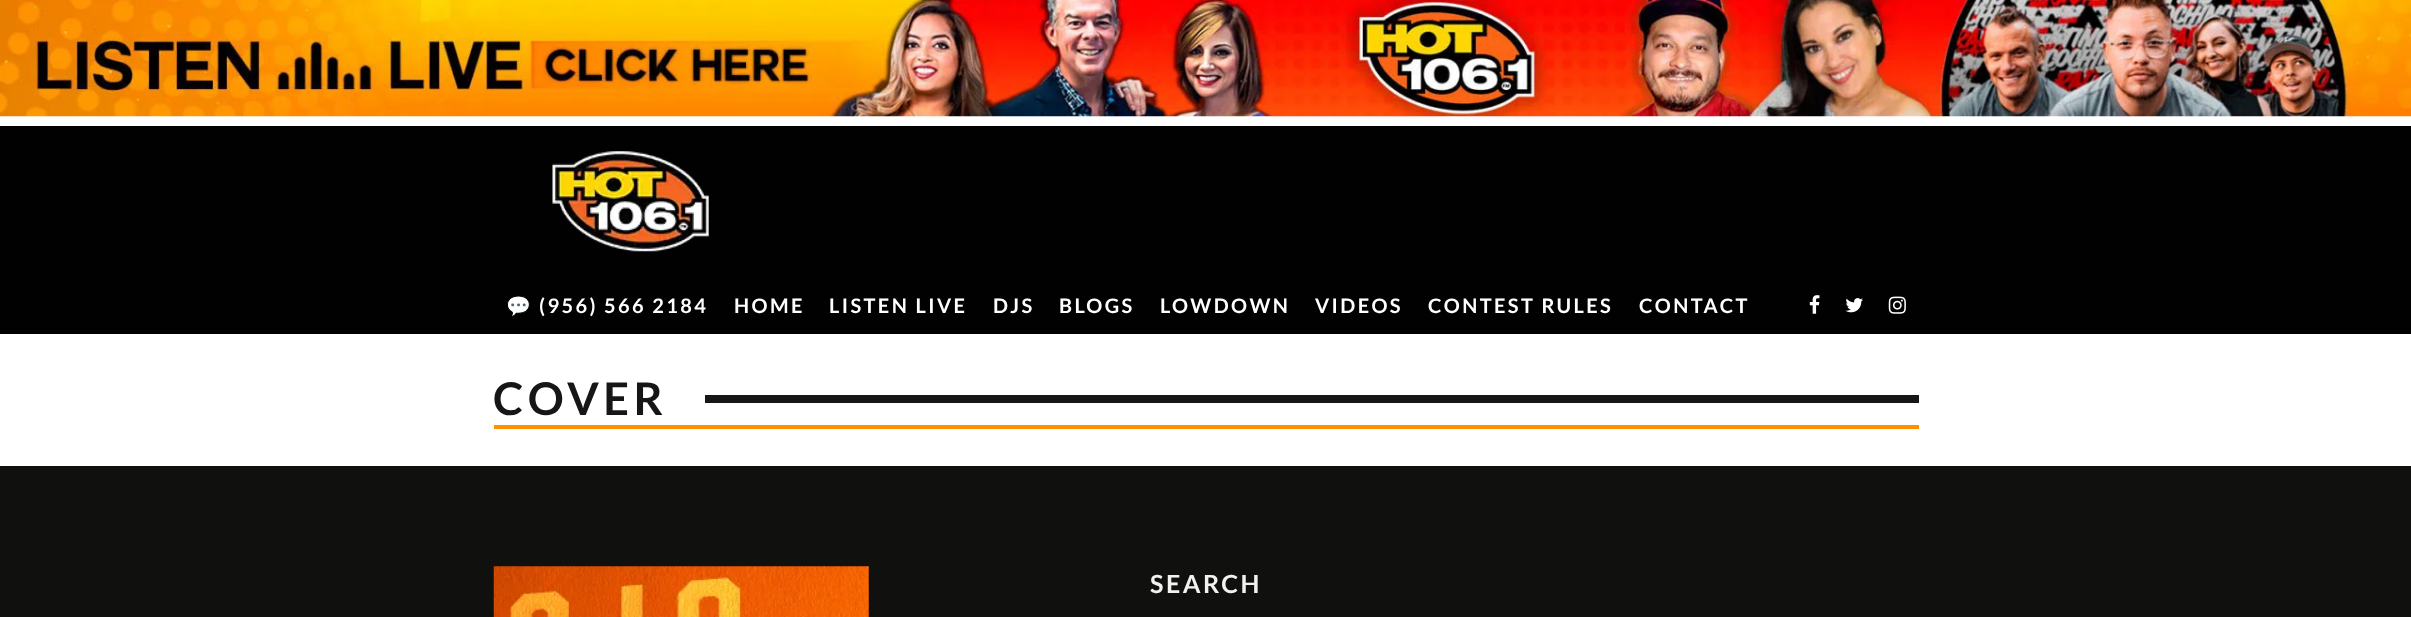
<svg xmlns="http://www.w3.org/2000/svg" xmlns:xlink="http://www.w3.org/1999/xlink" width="2411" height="617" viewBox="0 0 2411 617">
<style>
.cls-1{font:bold 20px Noto Color Emoji;letter-spacing:2.4px;fill:#ffffff}
.cls-2{font:bold 20px Lato;letter-spacing:2.4px;fill:#ffffff}
.cls-3{font:bold 45px Lato;letter-spacing:4.5px;fill:#161616}
.cls-4{font:bold 25px Lato;letter-spacing:2.5px;fill:#f2f2f2}
</style>
<rect width="100%" height="100%" fill="#ffffff"/>
<image xlink:href="image0.png" x="0" y="0" width="2411" height="117"/>
<rect fill="#010101" x="0" y="126" width="2411" height="208"/>
<image xlink:href="image1.png" x="552" y="151" width="157" height="101"/>
<image xlink:href="image2.png" x="1809" y="295" width="11" height="19"/>
<image xlink:href="image3.png" x="1845" y="298" width="18" height="15"/>
<image xlink:href="image4.png" x="1888" y="296" width="18" height="18"/>
<rect fill="#ff9000" x="494" y="425" width="1425" height="4"/>
<rect fill="#161616" x="705" y="395" width="1214" height="8"/>
<rect fill="#10100f" x="0" y="466" width="2411" height="151"/>
<image xlink:href="image5.png" x="493" y="566" width="376" height="51"/>
<text class="cls-1" x="506" y="313">💬</text>
<text class="cls-2" x="539" y="313">(956) 566 2184</text>
<text class="cls-2" x="734" y="313">HOME</text>
<text class="cls-2" x="829" y="313">LISTEN LIVE</text>
<text class="cls-2" x="993" y="313">DJS</text>
<text class="cls-2" x="1059" y="313">BLOGS</text>
<text class="cls-2" x="1160" y="313">LOWDOWN</text>
<text class="cls-2" x="1315" y="313">VIDEOS</text>
<text class="cls-2" x="1428" y="313">CONTEST RULES</text>
<text class="cls-2" x="1639" y="313">CONTACT</text>
<text class="cls-3" x="493" y="415">COVER</text>
<text class="cls-4" x="1150" y="593">SEARCH</text>
</svg>
